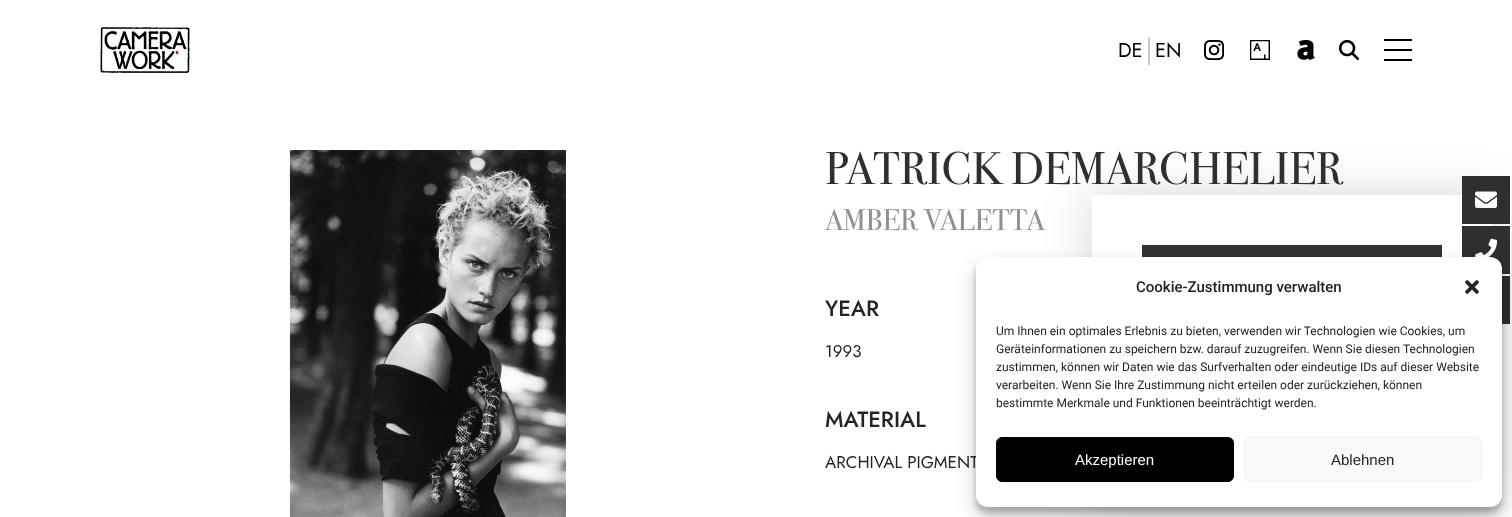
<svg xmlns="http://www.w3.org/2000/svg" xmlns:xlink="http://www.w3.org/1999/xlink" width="1512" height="517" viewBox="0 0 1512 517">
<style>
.cls-1{font:20px Jost;fill:#000000}
.cls-2{font:46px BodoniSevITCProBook;fill:#2f2f2f}
.cls-3{font:30px BodoniSevITCProBook;fill:#909091}
.cls-4{font:500 22px Jost;fill:#212529}
.cls-5{font:17px Jost;fill:#212529}
.cls-6{font:500 15px Roboto;fill:#222222}
.cls-7{font:12px Roboto;fill:#222222}
.cls-8{font:15px Liberation Sans;fill:#ffffff}
.cls-9{font:15px Liberation Sans;fill:#222222}
</style>
<defs>
<clipPath id="clip1"><path d="M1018 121H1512V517H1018ZM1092 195H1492V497H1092Z" clip-rule="evenodd"/></clipPath>
</defs>
<rect width="100%" height="100%" fill="#ffffff"/>
<image xlink:href="image0.png" x="100" y="27" width="90" height="46"/>
<rect fill="#cccccc" x="1148" y="37" width="2" height="28"/>
<image xlink:href="image1.png" x="1204" y="40" width="20" height="20"/>
<image xlink:href="image2.png" x="1250" y="40" width="20" height="20"/>
<image xlink:href="image3.png" x="1297" y="40" width="18" height="20"/>
<image xlink:href="image4.png" x="1339" y="40" width="20" height="20"/>
<rect fill="#000000" x="1384" y="39" width="28" height="2"/>
<rect fill="#000000" x="1384" y="49" width="28" height="2"/>
<rect fill="#000000" x="1384" y="59" width="28" height="2"/>
<g clip-path="url(#clip1)">
<rect fill="#000000" fill-opacity="0.17" filter="blur(24.5px)" x="1093" y="196" width="400" height="302"/>
</g>
<rect fill="#333333" x="1142" y="245" width="300" height="12"/>
<image xlink:href="image5.png" x="289" y="150" width="277" height="367"/>
<rect fill="#2f2f2f" x="1462" y="176" width="48" height="48"/>
<image xlink:href="image6.png" x="1475" y="191" width="22" height="17"/>
<rect fill="#2f2f2f" x="1462" y="226" width="48" height="48"/>
<image xlink:href="image7.png" x="1475" y="238" width="22" height="19"/>
<rect fill="#2f2f2f" x="1502" y="276" width="8" height="48"/>
<rect fill="#000000" fill-opacity="0.23" filter="blur(3px)" x="976" y="263" width="526" height="250" rx="12"/>
<rect fill="#000000" fill-opacity="0.19" filter="blur(10px)" x="976" y="267" width="526" height="250" rx="12"/>
<text class="cls-1" x="1118" y="57">DE</text>
<text class="cls-1" x="1155" y="57">EN</text>
<text class="cls-2" x="825" y="184">PATRICK DEMARCHELIER</text>
<text class="cls-3" x="825" y="230">AMBER VALETTA</text>
<text class="cls-4" x="825" y="316">YEAR</text>
<text class="cls-5" x="825" y="357">1993</text>
<text class="cls-4" x="825" y="427">MATERIAL</text>
<text class="cls-5" x="825" y="468">ARCHIVAL PIGMENT</text>
<rect fill="#ffffff" x="976" y="257" width="526" height="250" rx="12"/>
<text class="cls-6" x="1136" y="292">Cookie-Zustimmung verwalten</text>
<image xlink:href="image8.png" x="1465" y="280" width="14" height="14"/>
<text class="cls-7"><tspan x="996" y="335">Um Ihnen ein optimales Erlebnis zu bieten, verwenden wir Technologien wie Cookies, um</tspan><tspan x="996" y="353">Geräteinformationen zu speichern bzw. darauf zuzugreifen. Wenn Sie diesen Technologien</tspan><tspan x="996" y="371">zustimmen, können wir Daten wie das Surfverhalten oder eindeutige IDs auf dieser Website</tspan><tspan x="996" y="389">verarbeiten. Wenn Sie Ihre Zustimmung nicht erteilen oder zurückziehen, können</tspan><tspan x="996" y="407">bestimmte Merkmale und Funktionen beeinträchtigt werden.</tspan></text>
<rect fill="#000000" stroke="#000000" x="996.5" y="437.5" width="237" height="44" rx="5.5"/>
<text class="cls-8" x="1075" y="465">Akzeptieren</text>
<rect fill="#f9f9f9" stroke="#f2f2f2" x="1244.5" y="437.5" width="237" height="44" rx="5.5"/>
<text class="cls-9" x="1331" y="465">Ablehnen</text>
</svg>
